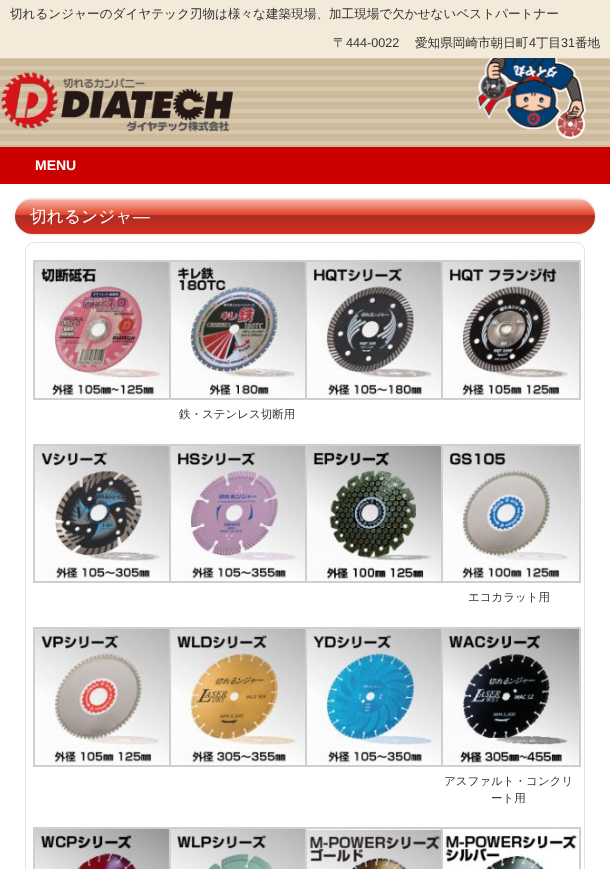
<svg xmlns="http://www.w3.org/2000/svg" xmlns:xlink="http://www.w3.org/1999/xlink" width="610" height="869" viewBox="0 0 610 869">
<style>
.cls-1{font:500 12.6px WenQuanYi Zen Hei;fill:#333333}
.cls-2{font:12.6px Liberation Sans;fill:#333333}
.cls-3{font:bold 14px Liberation Sans;fill:#ffffff}
.cls-4{font:500 16.75px WenQuanYi Zen Hei;fill:#ffffff}
.cls-5{font:16.75px Liberation Sans;fill:#ffffff}
.cls-6{font:500 11.5px WenQuanYi Zen Hei;fill:#333333}
</style>
<rect width="100%" height="100%" fill="#ffffff"/>
<image xlink:href="image0.png" x="0" y="58" width="610" height="89"/>
<rect fill="#f4ead9" x="0" y="0" width="610" height="58"/>
<image xlink:href="image1.png" x="0" y="71" width="233" height="61"/>
<image xlink:href="image2.png" x="476" y="58" width="111" height="82"/>
<rect fill="#cd0000" x="0" y="147" width="610" height="1"/>
<rect fill="#cd0000" x="0" y="148" width="610" height="36"/>
<rect fill="#000000" fill-opacity="0.2" filter="blur(1.5px)" x="15" y="199" width="580" height="35" rx="17.5"/>
<image xlink:href="image3.png" x="15" y="199" width="580" height="35"/>
<rect fill="none" stroke="#e2e2e2" x="25.5" y="242.5" width="559" height="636" rx="8.5"/>
<rect fill="none" stroke="#cfcfcf" stroke-width="2" x="34" y="261" width="138" height="138"/>
<image xlink:href="image4.png" x="35" y="262" width="134" height="136"/>
<rect fill="none" stroke="#cfcfcf" stroke-width="2" x="170" y="261" width="138" height="138"/>
<rect fill="none" stroke="#cfcfcf" stroke-width="2" x="306" y="261" width="138" height="138"/>
<image xlink:href="image5.png" x="307" y="262" width="134" height="136"/>
<rect fill="none" stroke="#cfcfcf" stroke-width="2" x="442" y="261" width="138" height="138"/>
<image xlink:href="image6.png" x="443" y="262" width="136" height="136"/>
<image xlink:href="image7.png" x="171" y="262" width="134" height="136"/>
<rect fill="none" stroke="#cfcfcf" stroke-width="2" x="34" y="445" width="138" height="137"/>
<image xlink:href="image8.png" x="35" y="446" width="134" height="135"/>
<rect fill="none" stroke="#cfcfcf" stroke-width="2" x="170" y="445" width="138" height="137"/>
<image xlink:href="image9.png" x="171" y="446" width="134" height="135"/>
<rect fill="none" stroke="#cfcfcf" stroke-width="2" x="306" y="445" width="138" height="137"/>
<image xlink:href="image10.png" x="307" y="446" width="134" height="135"/>
<rect fill="none" stroke="#cfcfcf" stroke-width="2" x="442" y="445" width="138" height="137"/>
<image xlink:href="image11.png" x="443" y="446" width="136" height="135"/>
<rect fill="none" stroke="#cfcfcf" stroke-width="2" x="34" y="628" width="138" height="138"/>
<image xlink:href="image12.png" x="35" y="629" width="134" height="136"/>
<rect fill="none" stroke="#cfcfcf" stroke-width="2" x="170" y="628" width="138" height="138"/>
<image xlink:href="image13.png" x="171" y="629" width="134" height="136"/>
<rect fill="none" stroke="#cfcfcf" stroke-width="2" x="306" y="628" width="138" height="138"/>
<image xlink:href="image14.png" x="307" y="629" width="134" height="136"/>
<rect fill="none" stroke="#cfcfcf" stroke-width="2" x="442" y="628" width="138" height="138"/>
<image xlink:href="image15.png" x="443" y="629" width="136" height="136"/>
<rect fill="none" stroke="#cfcfcf" stroke-width="2" x="34" y="828" width="138" height="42"/>
<image xlink:href="image16.png" x="35" y="829" width="134" height="40"/>
<rect fill="none" stroke="#cfcfcf" stroke-width="2" x="170" y="828" width="138" height="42"/>
<image xlink:href="image17.png" x="171" y="829" width="134" height="40"/>
<rect fill="none" stroke="#cfcfcf" stroke-width="2" x="306" y="828" width="138" height="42"/>
<image xlink:href="image18.png" x="307" y="829" width="134" height="40"/>
<rect fill="none" stroke="#cfcfcf" stroke-width="2" x="442" y="828" width="138" height="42"/>
<image xlink:href="image19.png" x="443" y="829" width="136" height="40"/>
<text class="cls-1" x="10" y="18">切れるンジャーのダイヤテック刃物は様々な建築現場、加工現場で欠かせないベストパートナー</text>
<text class="cls-1" x="333" y="47">〒</text>
<text class="cls-2" x="346" y="47">444-0022</text>
<text class="cls-1" x="415" y="47">愛知県岡崎市朝日町</text>
<text class="cls-2" x="529" y="47">4</text>
<text class="cls-1" x="536" y="47">丁目</text>
<text class="cls-2" x="561" y="47">31</text>
<text class="cls-1" x="575" y="47">番地</text>
<text class="cls-3" x="35" y="170">MENU</text>
<text class="cls-4" x="30" y="222">切れるンジャ</text>
<text class="cls-5" x="133" y="222">―</text>
<text class="cls-6" x="179" y="418">鉄・ステンレス切断用</text>
<text class="cls-6" x="468" y="601">エコカラット用</text>
<text class="cls-6" x="444" y="785">アスファルト・コンクリ</text>
<text class="cls-6" x="491" y="802">ート用</text>
</svg>
